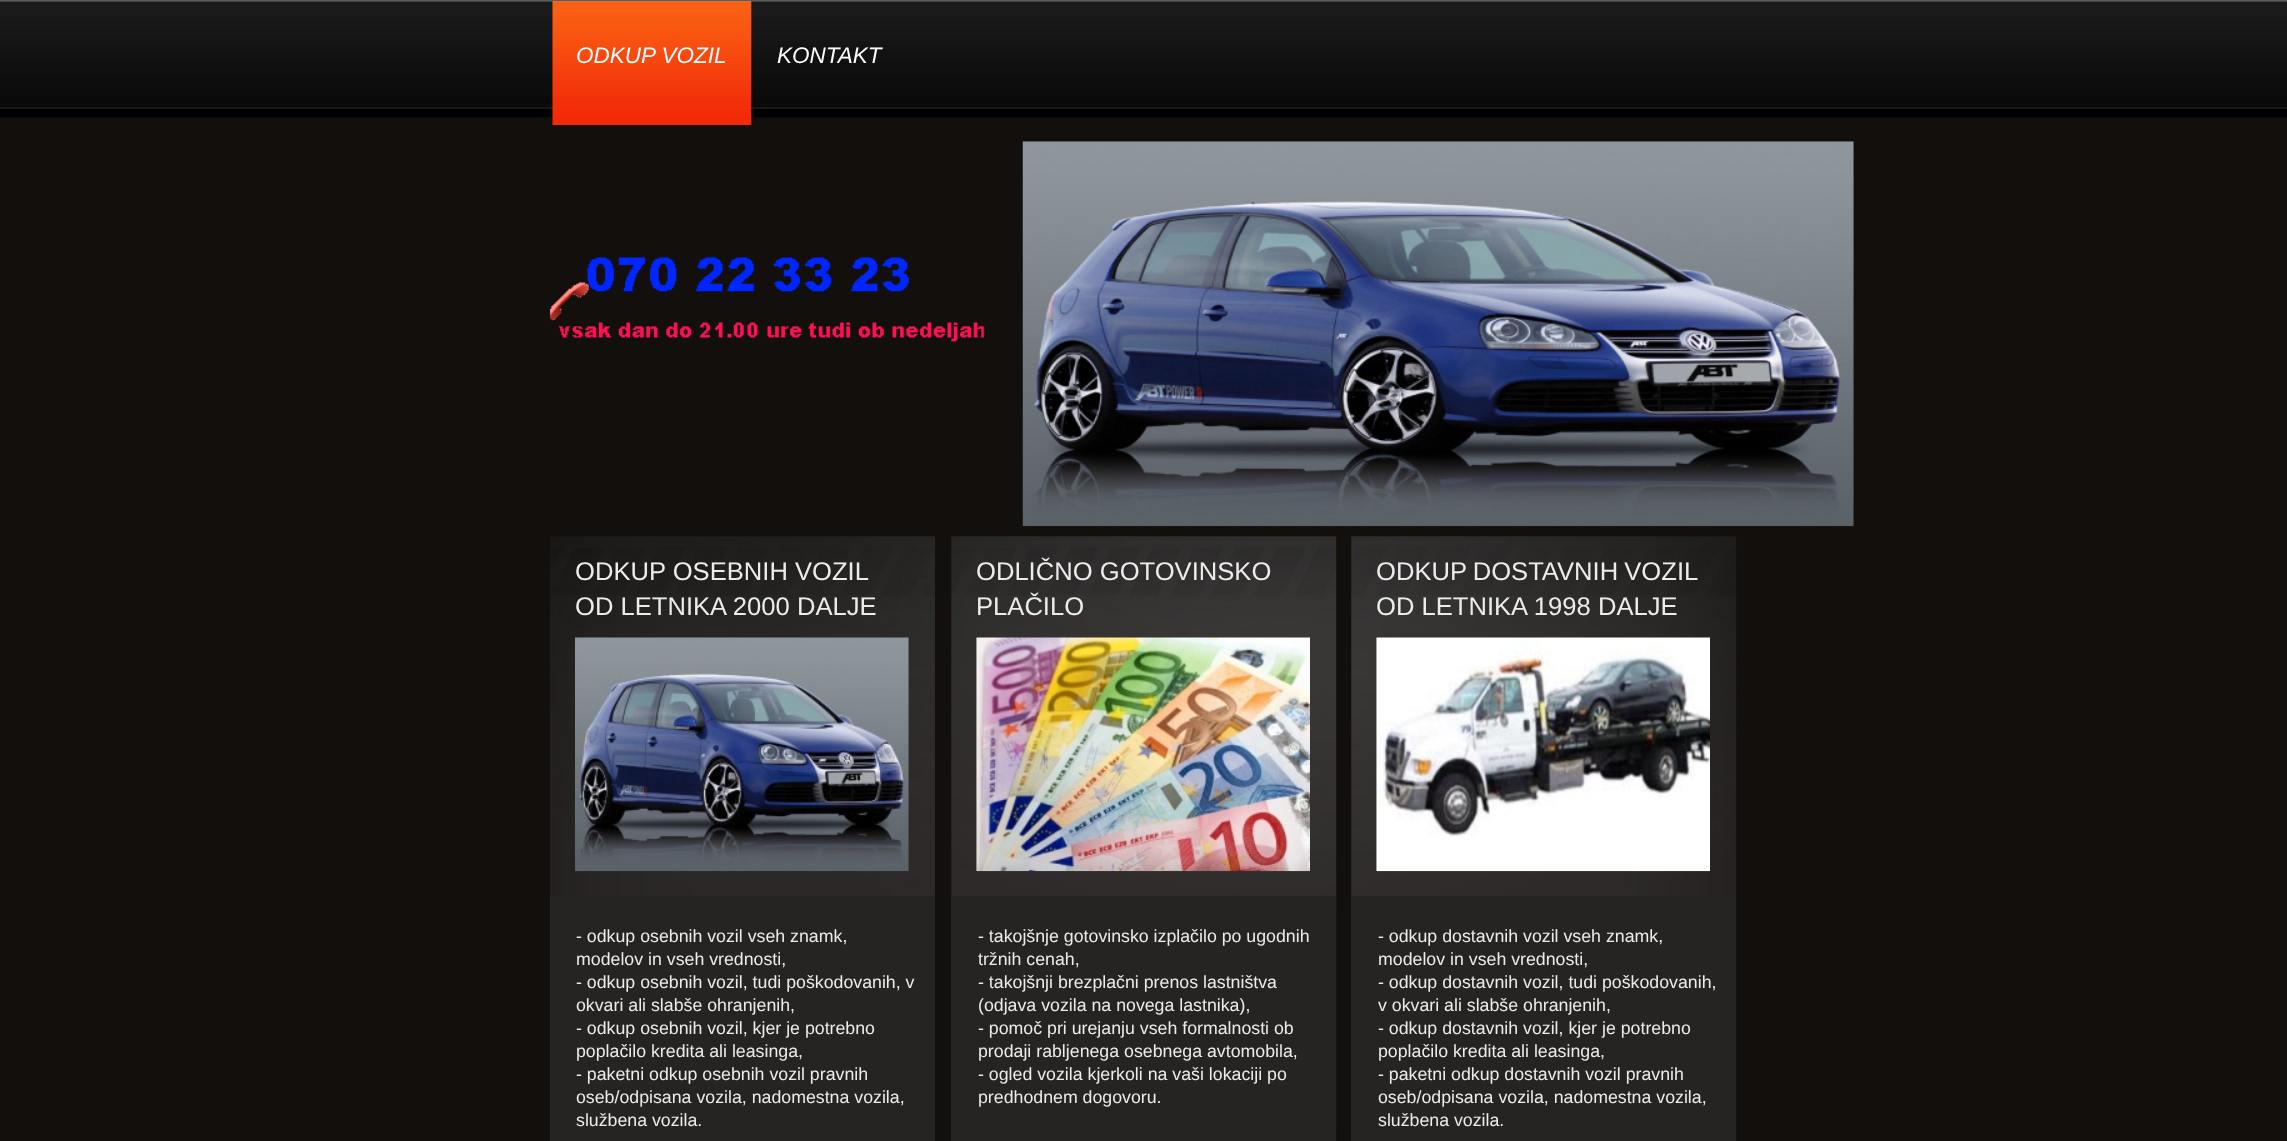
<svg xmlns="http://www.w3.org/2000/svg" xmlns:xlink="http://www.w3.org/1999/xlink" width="2287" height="1141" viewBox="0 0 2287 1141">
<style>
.cls-1{font:italic 22.5px Liberation Sans;fill:#ffffff}
.cls-2{font:25.6px Liberation Sans;fill:#ececec}
.cls-3{font:17.75px Liberation Sans;fill:#ececec}
</style>
<rect width="100%" height="100%" fill="#120f0d"/>
<rect fill="#5c5c5c" x="0" y="0" width="2287" height="1"/>
<image xlink:href="image0.png" x="0" y="1" width="2287" height="117"/>
<image xlink:href="image1.png" x="552" y="1" width="200" height="124"/>
<image xlink:href="image2.png" x="550" y="257" width="434" height="85"/>
<image xlink:href="image3.png" x="1022" y="141" width="832" height="386"/>
<image xlink:href="image4.png" x="550" y="536" width="385" height="360"/>
<image xlink:href="image5.png" x="575" y="637" width="334" height="235"/>
<rect fill="#262422" x="550" y="896" width="385" height="245"/>
<image xlink:href="image6.png" x="951" y="536" width="386" height="605"/>
<image xlink:href="image7.png" x="976" y="637" width="334" height="235"/>
<rect fill="#262422" x="951" y="896" width="385" height="245"/>
<image xlink:href="image8.png" x="1351" y="536" width="386" height="605"/>
<image xlink:href="image9.png" x="1376" y="637" width="334" height="235"/>
<rect fill="#262422" x="1351" y="896" width="385" height="245"/>
<text class="cls-1" x="576" y="63">ODKUP VOZIL</text>
<text class="cls-1" x="777" y="63">KONTAKT</text>
<text class="cls-2"><tspan x="575" y="580">ODKUP OSEBNIH VOZIL</tspan><tspan x="575" y="615">OD LETNIKA 2000 DALJE</tspan></text>
<text class="cls-3"><tspan x="576" y="942">- odkup osebnih vozil vseh znamk,</tspan><tspan x="576" y="965">modelov in vseh vrednosti,</tspan><tspan x="576" y="988">- odkup osebnih vozil, tudi poškodovanih, v</tspan><tspan x="576" y="1011">okvari ali slabše ohranjenih,</tspan><tspan x="576" y="1034">- odkup osebnih vozil, kjer je potrebno</tspan><tspan x="576" y="1057">poplačilo kredita ali leasinga,</tspan><tspan x="576" y="1080">- paketni odkup osebnih vozil pravnih</tspan><tspan x="576" y="1103">oseb/odpisana vozila, nadomestna vozila,</tspan><tspan x="576" y="1126">službena vozila.</tspan></text>
<text class="cls-2"><tspan x="976" y="580">ODLIČNO GOTOVINSKO</tspan><tspan x="976" y="615">PLAČILO</tspan></text>
<text class="cls-3"><tspan x="978" y="942">- takojšnje gotovinsko izplačilo po ugodnih</tspan><tspan x="978" y="965">tržnih cenah,</tspan><tspan x="978" y="988">- takojšnji brezplačni prenos lastništva</tspan><tspan x="978" y="1011">(odjava vozila na novega lastnika),</tspan><tspan x="978" y="1034">- pomoč pri urejanju vseh formalnosti ob</tspan><tspan x="978" y="1057">prodaji rabljenega osebnega avtomobila,</tspan><tspan x="978" y="1080">- ogled vozila kjerkoli na vaši lokaciji po</tspan><tspan x="978" y="1103">predhodnem dogovoru.</tspan></text>
<text class="cls-2"><tspan x="1376" y="580" word-spacing="-1">ODKUP DOSTAVNIH VOZIL</tspan><tspan x="1376" y="615">OD LETNIKA 1998 DALJE</tspan></text>
<text class="cls-3"><tspan x="1378" y="942">- odkup dostavnih vozil vseh znamk,</tspan><tspan x="1378" y="965">modelov in vseh vrednosti,</tspan><tspan x="1378" y="988">- odkup dostavnih vozil, tudi poškodovanih,</tspan><tspan x="1378" y="1011">v okvari ali slabše ohranjenih,</tspan><tspan x="1378" y="1034">- odkup dostavnih vozil, kjer je potrebno</tspan><tspan x="1378" y="1057">poplačilo kredita ali leasinga,</tspan><tspan x="1378" y="1080">- paketni odkup dostavnih vozil pravnih</tspan><tspan x="1378" y="1103">oseb/odpisana vozila, nadomestna vozila,</tspan><tspan x="1378" y="1126">službena vozila.</tspan></text>
</svg>
